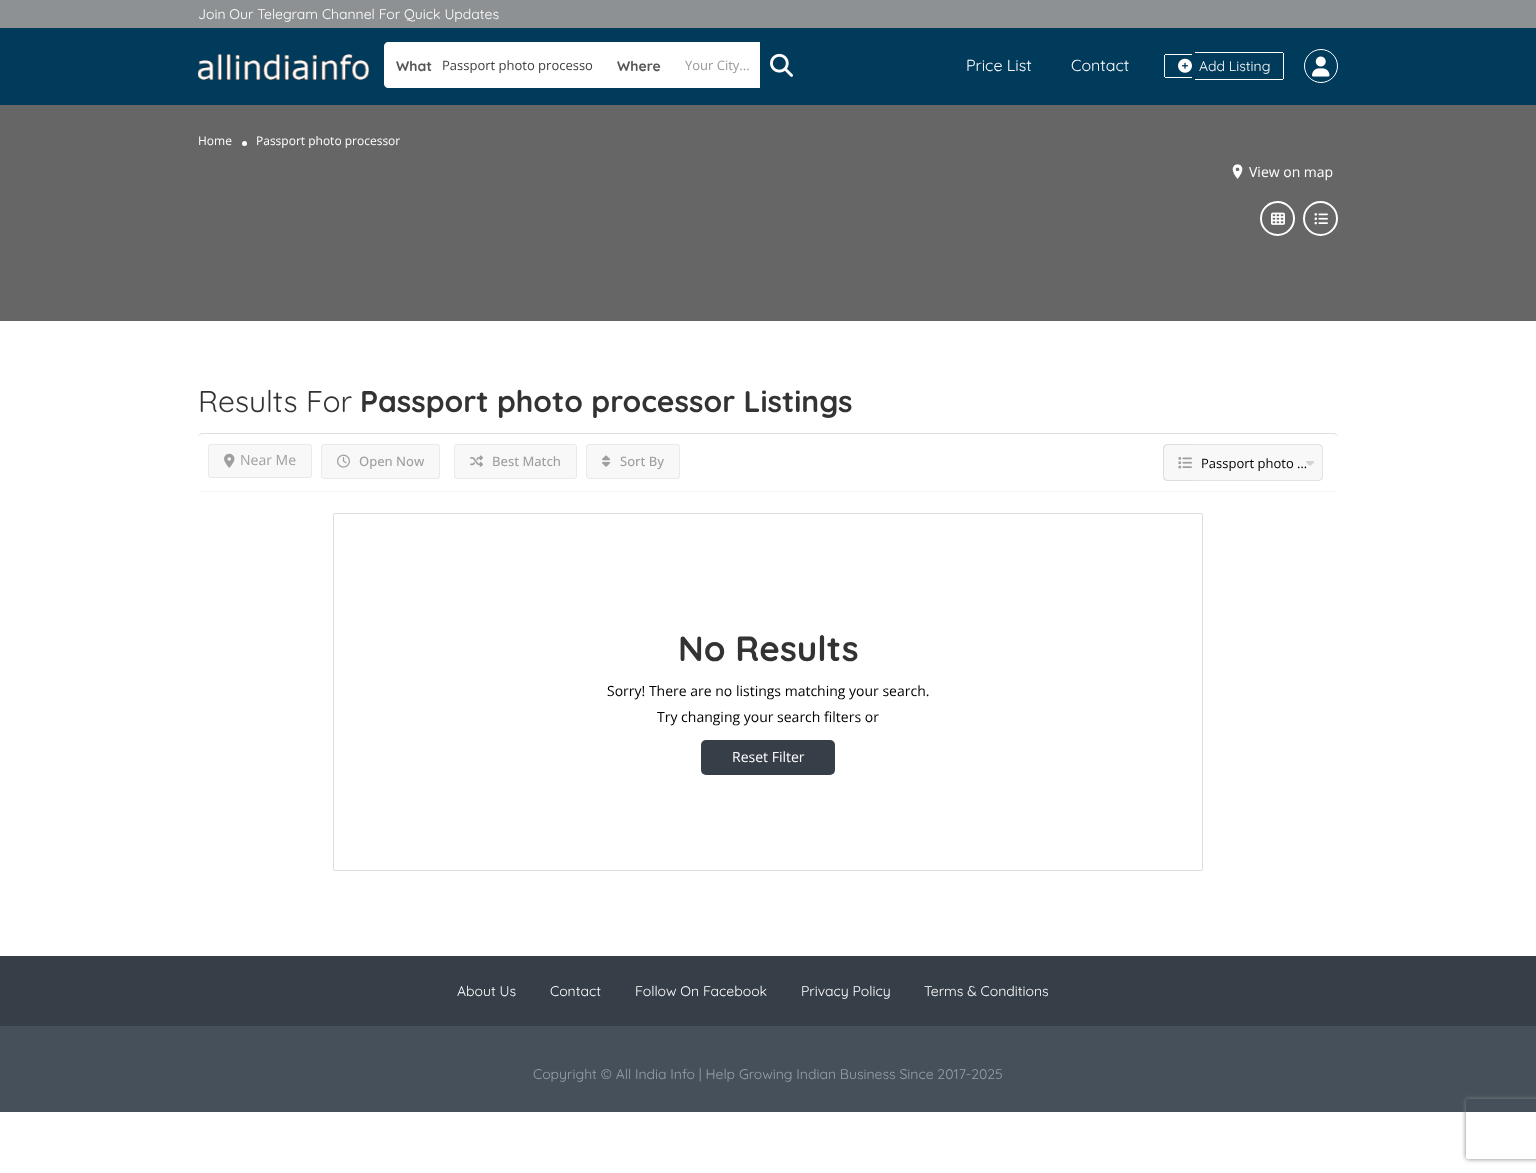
<svg xmlns="http://www.w3.org/2000/svg" xmlns:xlink="http://www.w3.org/1999/xlink" width="1536" height="1173" viewBox="0 0 1536 1173">
<style>
.cls-1{font:14px Quicksand;fill:#ffffff}
.cls-2{font:bold 14px Quicksand;fill:#555555}
.cls-3{font:13px Open Sans;fill:#3e3e3e}
.cls-4{font:13px Open Sans;fill:#999999}
.cls-5{font:16px Quicksand;fill:#ffffff}
.cls-6{font:12px Open Sans;fill:#ffffff}
.cls-7{font:14px Open Sans;fill:#ffffff}
.cls-8{font:30px Quicksand;fill:#333333}
.cls-9{font:bold 30px Quicksand;fill:#333333}
.cls-10{font:14px Open Sans;fill:#9f9f9f}
.cls-11{font:500 13px Open Sans;fill:#9f9f9f}
.cls-12{font:13px Open Sans;fill:#000000}
.cls-13{font:bold 35px Quicksand;fill:#333333}
.cls-14{font:14px Open Sans;fill:#000000}
.cls-15{font:14px Quicksand;fill:#96a0a9}
</style>
<defs>
<clipPath id="clip1"><path d="M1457 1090H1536V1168H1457ZM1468 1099H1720C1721 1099 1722 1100 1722 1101V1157C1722 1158 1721 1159 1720 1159H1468C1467 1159 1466 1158 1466 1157V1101C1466 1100 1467 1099 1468 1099Z" clip-rule="evenodd"/></clipPath>
</defs>
<rect width="100%" height="100%" fill="#ffffff"/>
<rect fill="#8e9193" x="0" y="0" width="1536" height="28"/>
<rect fill="#003b5c" x="0" y="28" width="1536" height="77"/>
<image xlink:href="image0.png" x="198" y="54" width="171" height="26"/>
<path fill="#ffffff" d="M388 42H605V88H388C386 88 384 86 384 84V46C384 44 386 42 388 42Z"/>
<rect fill="#ffffff" x="605" y="42" width="155" height="46"/>
<image xlink:href="image1.png" x="770" y="53" width="23" height="24"/>
<rect fill="#ffffff" x="1165" y="54" width="27" height="1"/>
<rect fill="#ffffff" x="1165" y="77" width="27" height="1"/>
<rect fill="#ffffff" x="1164" y="55" width="1" height="22"/>
<rect fill="#ffffff" x="1195" y="52" width="88" height="1"/>
<rect fill="#ffffff" x="1283" y="53" width="1" height="26"/>
<rect fill="#ffffff" x="1195" y="79" width="88" height="1"/>
<image xlink:href="image2.png" x="1178" y="58" width="14" height="15"/>
<circle fill="none" stroke="#ffffff" cx="1321" cy="66" r="16.5"/>
<image xlink:href="image3.png" x="1312" y="56" width="18" height="21"/>
<rect fill="#666666" x="0" y="105" width="1536" height="216"/>
<circle fill="#ffffff" cx="244.5" cy="143.5" r="2.5"/>
<image xlink:href="image4.png" x="1232" y="164" width="11" height="15"/>
<circle fill="none" stroke="#ffffff" stroke-width="2" cx="1277.5" cy="218.5" r="16.5"/>
<image xlink:href="image5.png" x="1271" y="212" width="14" height="13"/>
<circle fill="none" stroke="#ffffff" stroke-width="2" cx="1320.5" cy="218.5" r="16.5"/>
<image xlink:href="image6.png" x="1314" y="213" width="14" height="12"/>
<path fill="#dedede" d="M203 433C200 433 198 435 198 438C198 436 200 434 203 434H1333C1336 434 1338 436 1338 438C1338 435 1336 433 1333 433Z"/>
<path fill="#f6f6f6" d="M1333 492C1336 492 1338 490 1338 487C1338 489 1336 491 1333 491H203C200 491 198 489 198 487C198 490 200 492 203 492Z"/>
<rect fill="#f8f8f8" stroke="#eaeaea" x="208.5" y="444.5" width="103" height="33" rx="2.5"/>
<image xlink:href="image7.png" x="224" y="453" width="11" height="15"/>
<rect fill="#f8f8f8" stroke="#eaeaea" x="321.5" y="444.5" width="118" height="34" rx="2.5"/>
<image xlink:href="image8.png" x="337" y="454" width="13" height="14"/>
<rect fill="#f8f8f8" stroke="#eaeaea" x="454.5" y="444.5" width="122" height="34" rx="2.5"/>
<image xlink:href="image9.png" x="470" y="455" width="13" height="12"/>
<rect fill="#f8f8f8" stroke="#eaeaea" x="586.5" y="444.5" width="93" height="34" rx="2.5"/>
<image xlink:href="image10.png" x="602" y="455" width="9" height="12"/>
<path fill="#f8f8f8" d="M1168 444H1193V481H1168C1165 481 1163 479 1163 476V449C1163 446 1165 444 1168 444Z"/>
<path fill="#dedede" fill-rule="evenodd" d="M1168 444H1193V481H1168C1165 481 1163 479 1163 476V449C1163 446 1165 444 1168 444ZM1168 445H1193V480H1168C1166 480 1164 478 1164 476V449C1164 447 1166 445 1168 445Z"/>
<image xlink:href="image11.png" x="1178" y="457" width="14" height="12"/>
<path fill="#f8f8f8" d="M1193 444H1318C1321 444 1323 446 1323 449V476C1323 479 1321 481 1318 481H1193Z"/>
<path fill="#e3e3e3" fill-rule="evenodd" d="M1193 444H1318C1321 444 1323 446 1323 449V476C1323 479 1321 481 1318 481H1193ZM1193 445H1318C1320 445 1322 447 1322 449V476C1322 478 1320 480 1318 480H1193Z"/>
<rect fill="none" stroke="#dedede" x="333.5" y="513.5" width="869" height="357" rx="1.5"/>
<rect fill="#363f48" x="701" y="740" width="134" height="35" rx="5"/>
<rect fill="#363f48" x="0" y="956" width="1536" height="70"/>
<rect fill="#45505b" x="0" y="1026" width="1536" height="86"/>
<g clip-path="url(#clip1)">
<rect fill="#808080" filter="blur(2.5px)" x="1466" y="1099" width="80" height="60" rx="2"/>
</g>
<text class="cls-1" x="198" y="19">Join Our Telegram Channel For Quick Updates</text>
<text class="cls-2" x="396" y="71">What</text>
<text class="cls-3" x="442" y="70">Passport photo processo</text>
<text class="cls-2" x="617" y="71">Where</text>
<text class="cls-4" x="685" y="70">Your City...</text>
<text class="cls-5" x="966" y="71">Price List</text>
<text class="cls-5" x="1071" y="71">Contact</text>
<text class="cls-1" x="1199" y="71">Add Listing</text>
<text class="cls-6" x="198" y="145">Home</text>
<text class="cls-6" x="256" y="145">Passport photo processor</text>
<text class="cls-7" x="1249" y="177">View on map</text>
<text class="cls-8" x="198" y="412">Results For</text>
<text class="cls-9" x="360" y="412">Passport photo processor Listings</text>
<text class="cls-10" x="240" y="465">Near Me</text>
<text class="cls-11" x="359" y="466">Open Now</text>
<text class="cls-11" x="492" y="466">Best Match</text>
<text class="cls-11" x="620" y="466">Sort By</text>
<text class="cls-12" x="1201" y="468">Passport photo …</text>
<image xlink:href="image12.png" x="1306" y="461" width="8" height="5"/>
<text class="cls-13" x="678" y="661">No Results</text>
<text class="cls-14" x="607" y="696">Sorry! There are no listings matching your search.</text>
<text class="cls-14" x="657" y="722">Try changing your search filters or</text>
<text class="cls-7" x="732" y="762">Reset Filter</text>
<text class="cls-1" x="457" y="996">About Us</text>
<text class="cls-1" x="550" y="996">Contact</text>
<text class="cls-1" x="635" y="996">Follow On Facebook</text>
<text class="cls-1" x="801" y="996">Privacy Policy</text>
<text class="cls-1" x="924" y="996">Terms &amp; Conditions</text>
<text class="cls-15" x="533" y="1079">Copyright © All India Info | Help Growing Indian Business Since 2017-2025</text>
</svg>
